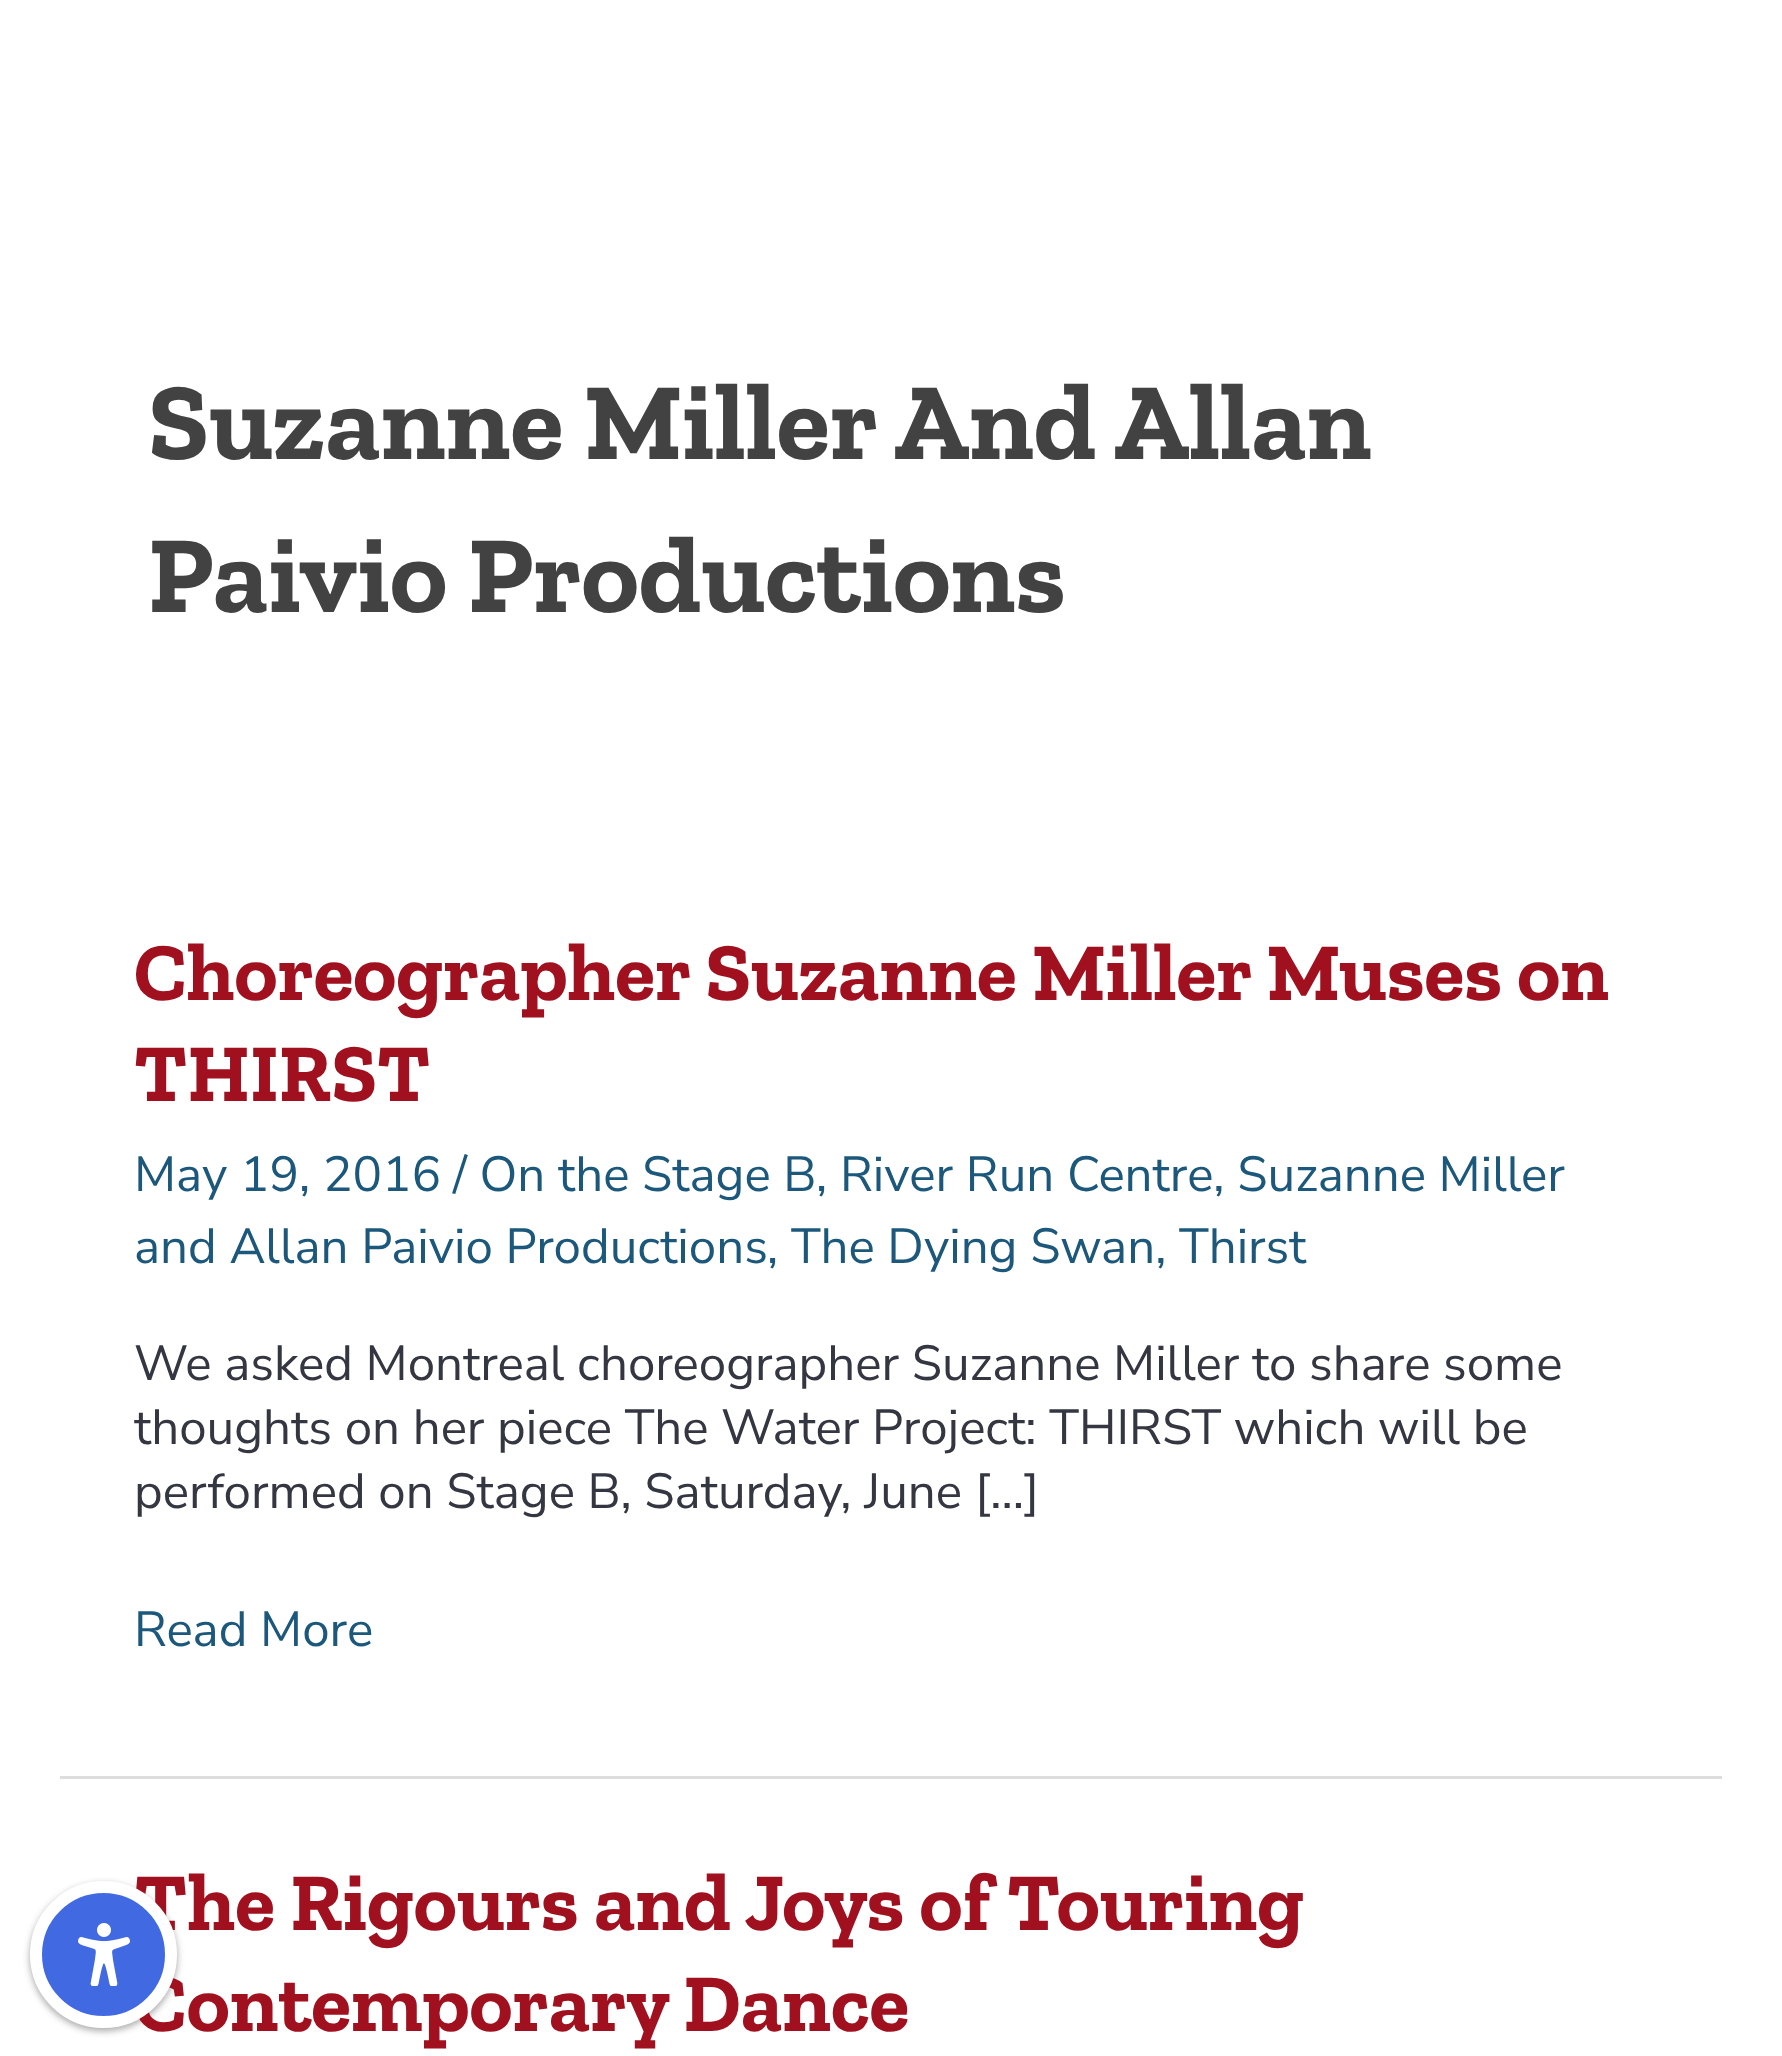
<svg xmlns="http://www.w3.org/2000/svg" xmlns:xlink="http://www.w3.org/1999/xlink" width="1782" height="2056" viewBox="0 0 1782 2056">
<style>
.cls-1{font:bold 109.5px Zilla Slab;fill:#424242}
.cls-2{font:bold 82.1px Zilla Slab;fill:#a1101f}
.cls-3{font:49.25px Nunito Sans;fill:#1c587b}
.cls-4{font:49.25px Nunito Sans;fill:#343741}
</style>
<rect width="100%" height="100%" fill="#ffffff"/>
<rect fill="#000000" fill-opacity="0.24" filter="blur(3px)" x="30" y="1884" width="147" height="147" rx="73.5"/>
<rect fill="#000000" fill-opacity="0.12" filter="blur(4.5px)" x="30" y="1884" width="147" height="147" rx="73.5"/>
<rect fill="#dddddd" x="60" y="1776" width="1662" height="3"/>
<text class="cls-1"><tspan x="148" y="459">Suzanne Miller And Allan</tspan><tspan x="148" y="612">Paivio Productions</tspan></text>
<text class="cls-2"><tspan x="134" y="1000">Choreographer Suzanne Miller Muses on</tspan><tspan x="134" y="1101">THIRST</tspan></text>
<text class="cls-3" x="134" y="1191">May 19, 2016</text>
<text class="cls-3" x="453" y="1191">/ On the Stage B</text>
<text class="cls-3" x="816" y="1191">, River Run Centre, Suzanne Miller</text>
<text class="cls-3" x="134" y="1263">and Allan Paivio Productions</text>
<text class="cls-3" x="767" y="1263">, The Dying Swan, Thirst</text>
<text class="cls-4"><tspan x="134" y="1380">We asked Montreal choreographer Suzanne Miller to share some</tspan><tspan x="134" y="1444">thoughts on her piece The Water Project: THIRST which will be</tspan><tspan x="134" y="1508">performed on Stage B, Saturday, June […]</tspan></text>
<text class="cls-3" x="134" y="1646">Read More</text>
<text class="cls-2"><tspan x="134" y="1930">The Rigours and Joys of Touring</tspan><tspan x="134" y="2031">Contemporary Dance</tspan></text>
<circle fill="#4169e1" stroke="#ffffff" stroke-width="12" cx="103.5" cy="1954.5" r="67.5"/>
<image xlink:href="image0.png" x="78" y="1923" width="52" height="63"/>
</svg>
